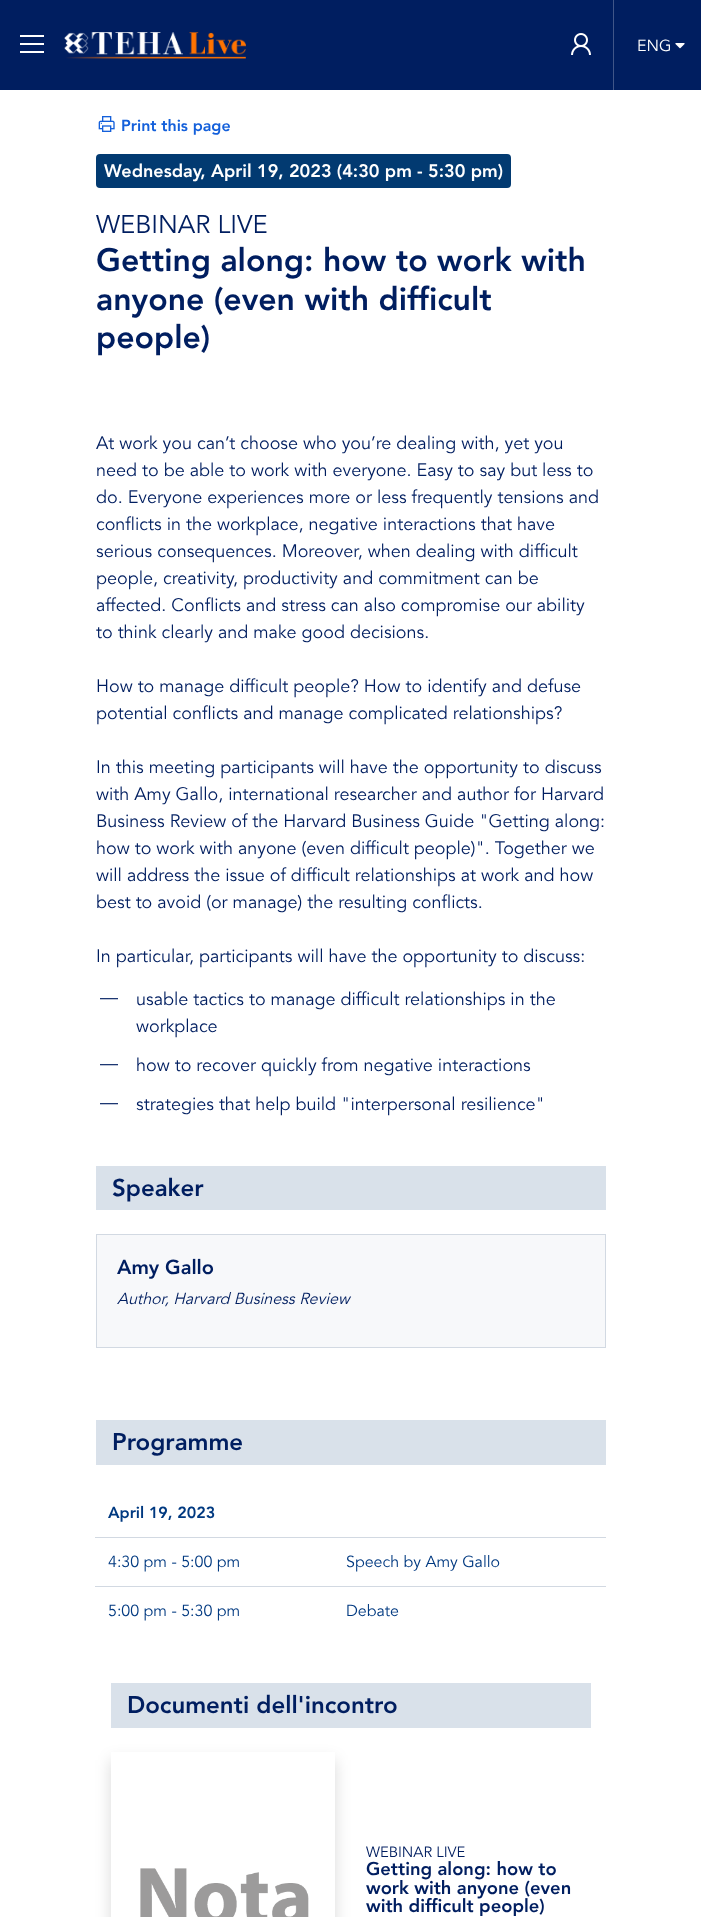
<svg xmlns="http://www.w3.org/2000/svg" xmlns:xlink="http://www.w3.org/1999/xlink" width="701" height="1917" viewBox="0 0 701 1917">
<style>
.cls-1{font:16px Avenir;fill:#ffffff}
.cls-2{font:900 16px 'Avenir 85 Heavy';fill:#1460db}
.cls-3{font:900 18px 'Avenir 85 Heavy';fill:#ffffff}
.cls-4{font:25.5px Avenir;fill:#001e60}
.cls-5{font:900 32px 'Avenir 85 Heavy';fill:#001e60}
.cls-6{font:18px Avenir;fill:#001e60}
.cls-7{font:900 24px 'Avenir 85 Heavy';fill:#001e60}
.cls-8{font:900 20px 'Avenir 85 Heavy';fill:#001e60}
.cls-9{font:italic 16px Avenir;fill:#001e60}
.cls-10{font:900 16px 'Avenir 85 Heavy';fill:#003980}
.cls-11{font:16px Avenir;fill:#003980}
.cls-12{font:14.75px Avenir;fill:#001e60}
.cls-13{font:900 18.4px 'Avenir 85 Heavy';fill:#001e60}
</style>
<defs>
<clipPath id="clip1"><path d="M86 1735H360V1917H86ZM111 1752H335V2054H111Z" clip-rule="evenodd"/></clipPath>
<clipPath id="clip2"><rect x="366" y="1842" width="225" height="74"/></clipPath>
</defs>
<rect width="100%" height="100%" fill="#ffffff"/>
<rect fill="#001e60" x="0" y="0" width="701" height="90"/>
<image xlink:href="image0.png" x="20" y="35" width="24" height="18"/>
<image xlink:href="image1.png" x="64" y="32" width="182" height="27"/>
<image xlink:href="image2.png" x="571" y="33" width="20" height="22"/>
<rect fill="#405688" x="613" y="0" width="1" height="90"/>
<image xlink:href="image3.png" x="675" y="43" width="10" height="6"/>
<image xlink:href="image4.png" x="98" y="116" width="17" height="16"/>
<rect fill="#023a71" x="96" y="154" width="415" height="34" rx="4"/>
<rect fill="#d9e1ea" x="96" y="1166" width="510" height="44"/>
<rect fill="#f7f8fa" stroke="#d2d9e2" x="96.5" y="1234.5" width="509" height="113"/>
<rect fill="#d9e1ea" x="96" y="1420" width="510" height="45"/>
<rect fill="#d2d9e2" x="95" y="1537" width="511" height="1"/>
<rect fill="#d2d9e2" x="95" y="1586" width="511" height="1"/>
<rect fill="#d9e1ea" x="111" y="1683" width="480" height="45"/>
<g clip-path="url(#clip1)">
<rect fill="#000000" fill-opacity="0.15" filter="blur(8px)" x="111" y="1760" width="224" height="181"/>
</g>
<image xlink:href="image5.png" x="140" y="1868" width="169" height="49"/>
<text class="cls-1" x="637" y="51">ENG</text>
<text class="cls-2" x="121" y="131">Print this page</text>
<text class="cls-3" x="104" y="177">Wednesday, April 19, 2023 (4:30 pm - 5:30 pm)</text>
<text class="cls-4" x="96" y="233">WEBINAR LIVE</text>
<text class="cls-5"><tspan x="96" y="271">Getting along: how to work with</tspan><tspan x="96" y="310">anyone (even with difficult</tspan><tspan x="96" y="348">people)</tspan></text>
<text class="cls-6"><tspan x="96" y="449">At work you can’t choose who you’re dealing with, yet you</tspan><tspan x="96" y="476">need to be able to work with everyone. Easy to say but less to</tspan><tspan x="96" y="503">do. Everyone experiences more or less frequently tensions and</tspan><tspan x="96" y="530">conflicts in the workplace, negative interactions that have</tspan><tspan x="96" y="557">serious consequences. Moreover, when dealing with difficult</tspan><tspan x="96" y="584">people, creativity, productivity and commitment can be</tspan><tspan x="96" y="611">affected. Conflicts and stress can also compromise our ability</tspan><tspan x="96" y="638">to think clearly and make good decisions.</tspan></text>
<text class="cls-6"><tspan x="96" y="692">How to manage difficult people? How to identify and defuse</tspan><tspan x="96" y="719">potential conflicts and manage complicated relationships?</tspan></text>
<text class="cls-6"><tspan x="96" y="773">In this meeting participants will have the opportunity to discuss</tspan><tspan x="96" y="800">with Amy Gallo, international researcher and author for Harvard</tspan><tspan x="96" y="827">Business Review of the Harvard Business Guide "Getting along:</tspan><tspan x="96" y="854">how to work with anyone (even difficult people)". Together we</tspan><tspan x="96" y="881">will address the issue of difficult relationships at work and how</tspan><tspan x="96" y="908">best to avoid (or manage) the resulting conflicts.</tspan></text>
<text class="cls-6" x="96" y="962">In particular, participants will have the opportunity to discuss:</text>
<text class="cls-6" x="100" y="1003">—</text>
<text class="cls-6"><tspan x="136" y="1005">usable tactics to manage difficult relationships in the</tspan><tspan x="136" y="1032">workplace</tspan></text>
<text class="cls-6" x="100" y="1069">—</text>
<text class="cls-6" x="136" y="1071">how to recover quickly from negative interactions</text>
<text class="cls-6" x="100" y="1108">—</text>
<text class="cls-6" x="136" y="1110">strategies that help build "interpersonal resilience"</text>
<text class="cls-7" x="112" y="1196">Speaker</text>
<text class="cls-8" x="117" y="1274">Amy Gallo</text>
<text class="cls-9" x="117" y="1304">Author, Harvard Business Review</text>
<text class="cls-7" x="112" y="1450">Programme</text>
<text class="cls-10" x="108" y="1518">April 19, 2023</text>
<text class="cls-11" x="108" y="1567">4:30 pm - 5:00 pm</text>
<text class="cls-11" x="346" y="1567">Speech by Amy Gallo</text>
<text class="cls-11" x="108" y="1616">5:00 pm - 5:30 pm</text>
<text class="cls-11" x="346" y="1616">Debate</text>
<text class="cls-7" x="127" y="1713">Documenti dell'incontro</text>
<text class="cls-12" x="366" y="1857">WEBINAR LIVE</text>
<text class="cls-13"><tspan x="366" y="1875">Getting along: how to</tspan><tspan x="366" y="1894">work with anyone (even</tspan></text>
<g clip-path="url(#clip2)">
<text class="cls-13" x="366" y="1912">with difficult people)</text>
</g>
</svg>
